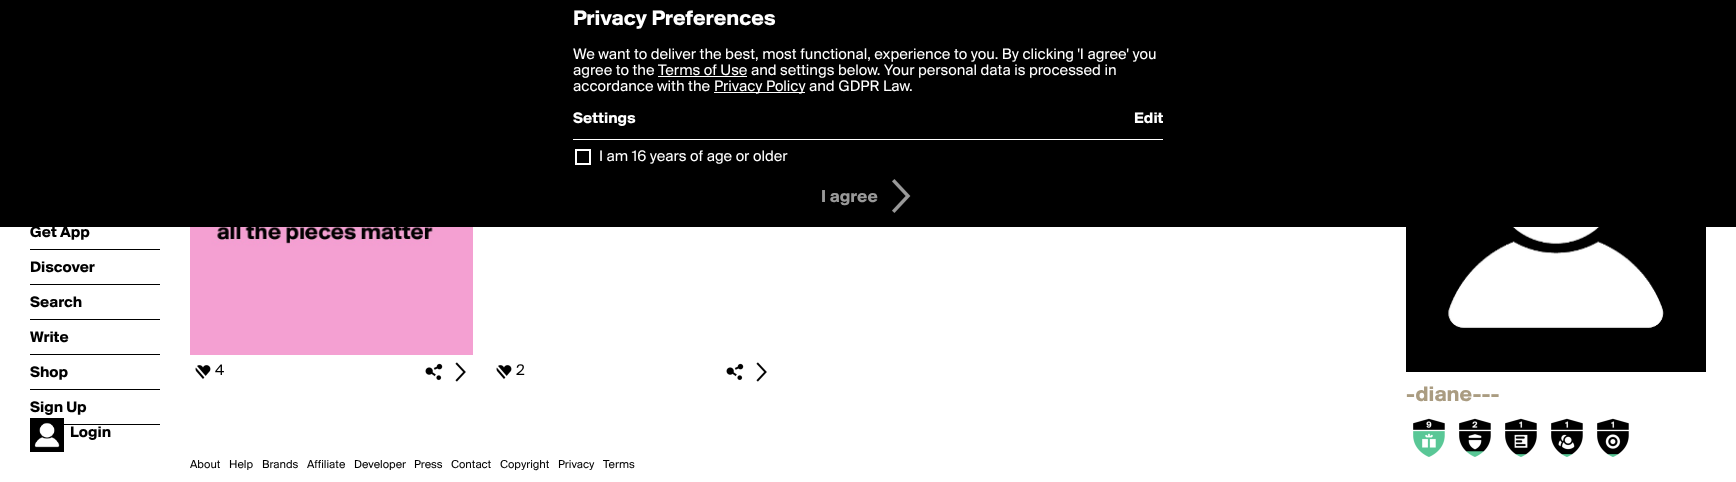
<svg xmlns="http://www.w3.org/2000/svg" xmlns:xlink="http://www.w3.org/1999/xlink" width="1736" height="482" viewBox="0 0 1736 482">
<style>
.cls-1{font:bold 22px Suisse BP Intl;fill:#ffffff}
.cls-2{font:16px Suisse BP Intl;fill:#ffffff}
.cls-3{font:bold 16px Suisse BP Intl;fill:#ffffff}
.cls-4{font:bold 18px Suisse BP Intl;fill:#999999}
.cls-5{font:bold 16px Suisse BP Intl;fill:#000000}
.cls-6{font:16px Suisse BP Intl;fill:#000000}
.cls-7{font:bold 22px Suisse BP Intl;fill:#aa9c81}
.cls-8{font:12px Suisse BP Intl;fill:#000000}
</style>
<rect width="100%" height="100%" fill="#ffffff"/>
<rect fill="#000000" x="0" y="0" width="1736" height="227"/>
<rect fill="#ffffff" x="658" y="76" width="89" height="1"/>
<rect fill="#ffffff" x="714" y="92" width="91" height="1"/>
<rect fill="#ffffff" x="573" y="139" width="590" height="1"/>
<rect fill="none" stroke="#ffffff" stroke-width="2" x="576" y="150" width="14" height="14"/>
<image xlink:href="image0.png" x="892" y="179" width="19" height="34"/>
<rect fill="#000000" x="30" y="249" width="130" height="1"/>
<rect fill="#000000" x="30" y="284" width="130" height="1"/>
<rect fill="#000000" x="30" y="319" width="130" height="1"/>
<rect fill="#000000" x="30" y="354" width="130" height="1"/>
<rect fill="#000000" x="30" y="389" width="130" height="1"/>
<rect fill="#000000" x="64" y="424" width="96" height="1"/>
<image xlink:href="image1.png" x="30" y="418" width="34" height="34"/>
<image xlink:href="image2.png" x="190" y="227" width="283" height="128"/>
<image xlink:href="image3.png" x="195" y="365" width="16" height="14"/>
<image xlink:href="image4.png" x="425" y="363" width="18" height="18"/>
<image xlink:href="image5.png" x="455" y="362" width="11" height="20"/>
<image xlink:href="image3.png" x="496" y="365" width="16" height="14"/>
<image xlink:href="image4.png" x="726" y="363" width="18" height="18"/>
<image xlink:href="image5.png" x="756" y="362" width="11" height="20"/>
<image xlink:href="image6.png" x="1406" y="227" width="300" height="145"/>
<image xlink:href="image7.png" x="1413" y="418" width="32" height="39"/>
<image xlink:href="image8.png" x="1422" y="433" width="14" height="15"/>
<image xlink:href="image9.png" x="1459" y="418" width="32" height="39"/>
<image xlink:href="image10.png" x="1468" y="434" width="14" height="16"/>
<image xlink:href="image11.png" x="1505" y="418" width="32" height="39"/>
<image xlink:href="image12.png" x="1514" y="434" width="14" height="14"/>
<image xlink:href="image11.png" x="1551" y="418" width="32" height="39"/>
<image xlink:href="image13.png" x="1558" y="434" width="17" height="16"/>
<image xlink:href="image11.png" x="1597" y="418" width="32" height="39"/>
<image xlink:href="image14.png" x="1605" y="434" width="16" height="15"/>
<text class="cls-1" x="573" y="25">Privacy Preferences</text>
<text class="cls-2"><tspan x="573" y="59">We want to deliver the best, most functional, experience to you. By clicking 'I agree' you</tspan><tspan x="573" y="75">agree to the Terms of Use and settings below. Your personal data is processed in</tspan><tspan x="573" y="91">accordance with the</tspan></text>
<text class="cls-2" x="714" y="91">Privacy Policy and GDPR Law.</text>
<text class="cls-3" x="573" y="123">Settings</text>
<text class="cls-3" x="1134" y="123">Edit</text>
<text class="cls-2" x="599" y="161">I am 16 years of age or older</text>
<text class="cls-4" x="821" y="202">I agree</text>
<text class="cls-5" x="30" y="237">Get App</text>
<text class="cls-5" x="30" y="272">Discover</text>
<text class="cls-5" x="30" y="307">Search</text>
<text class="cls-5" x="30" y="342">Write</text>
<text class="cls-5" x="30" y="377">Shop</text>
<text class="cls-5" x="30" y="412">Sign Up</text>
<text class="cls-5" x="70" y="437">Login</text>
<text class="cls-6" x="215" y="375">4</text>
<text class="cls-6" x="516" y="375">2</text>
<text class="cls-7" x="1406" y="401">-diane---</text>
<text class="cls-8" x="190" y="468">About</text>
<text class="cls-8" x="229" y="468">Help</text>
<text class="cls-8" x="262" y="468">Brands</text>
<text class="cls-8" x="307" y="468">Affiliate</text>
<text class="cls-8" x="354" y="468">Developer</text>
<text class="cls-8" x="414" y="468">Press</text>
<text class="cls-8" x="451" y="468">Contact</text>
<text class="cls-8" x="500" y="468">Copyright</text>
<text class="cls-8" x="558" y="468">Privacy</text>
<text class="cls-8" x="603" y="468">Terms</text>
</svg>
